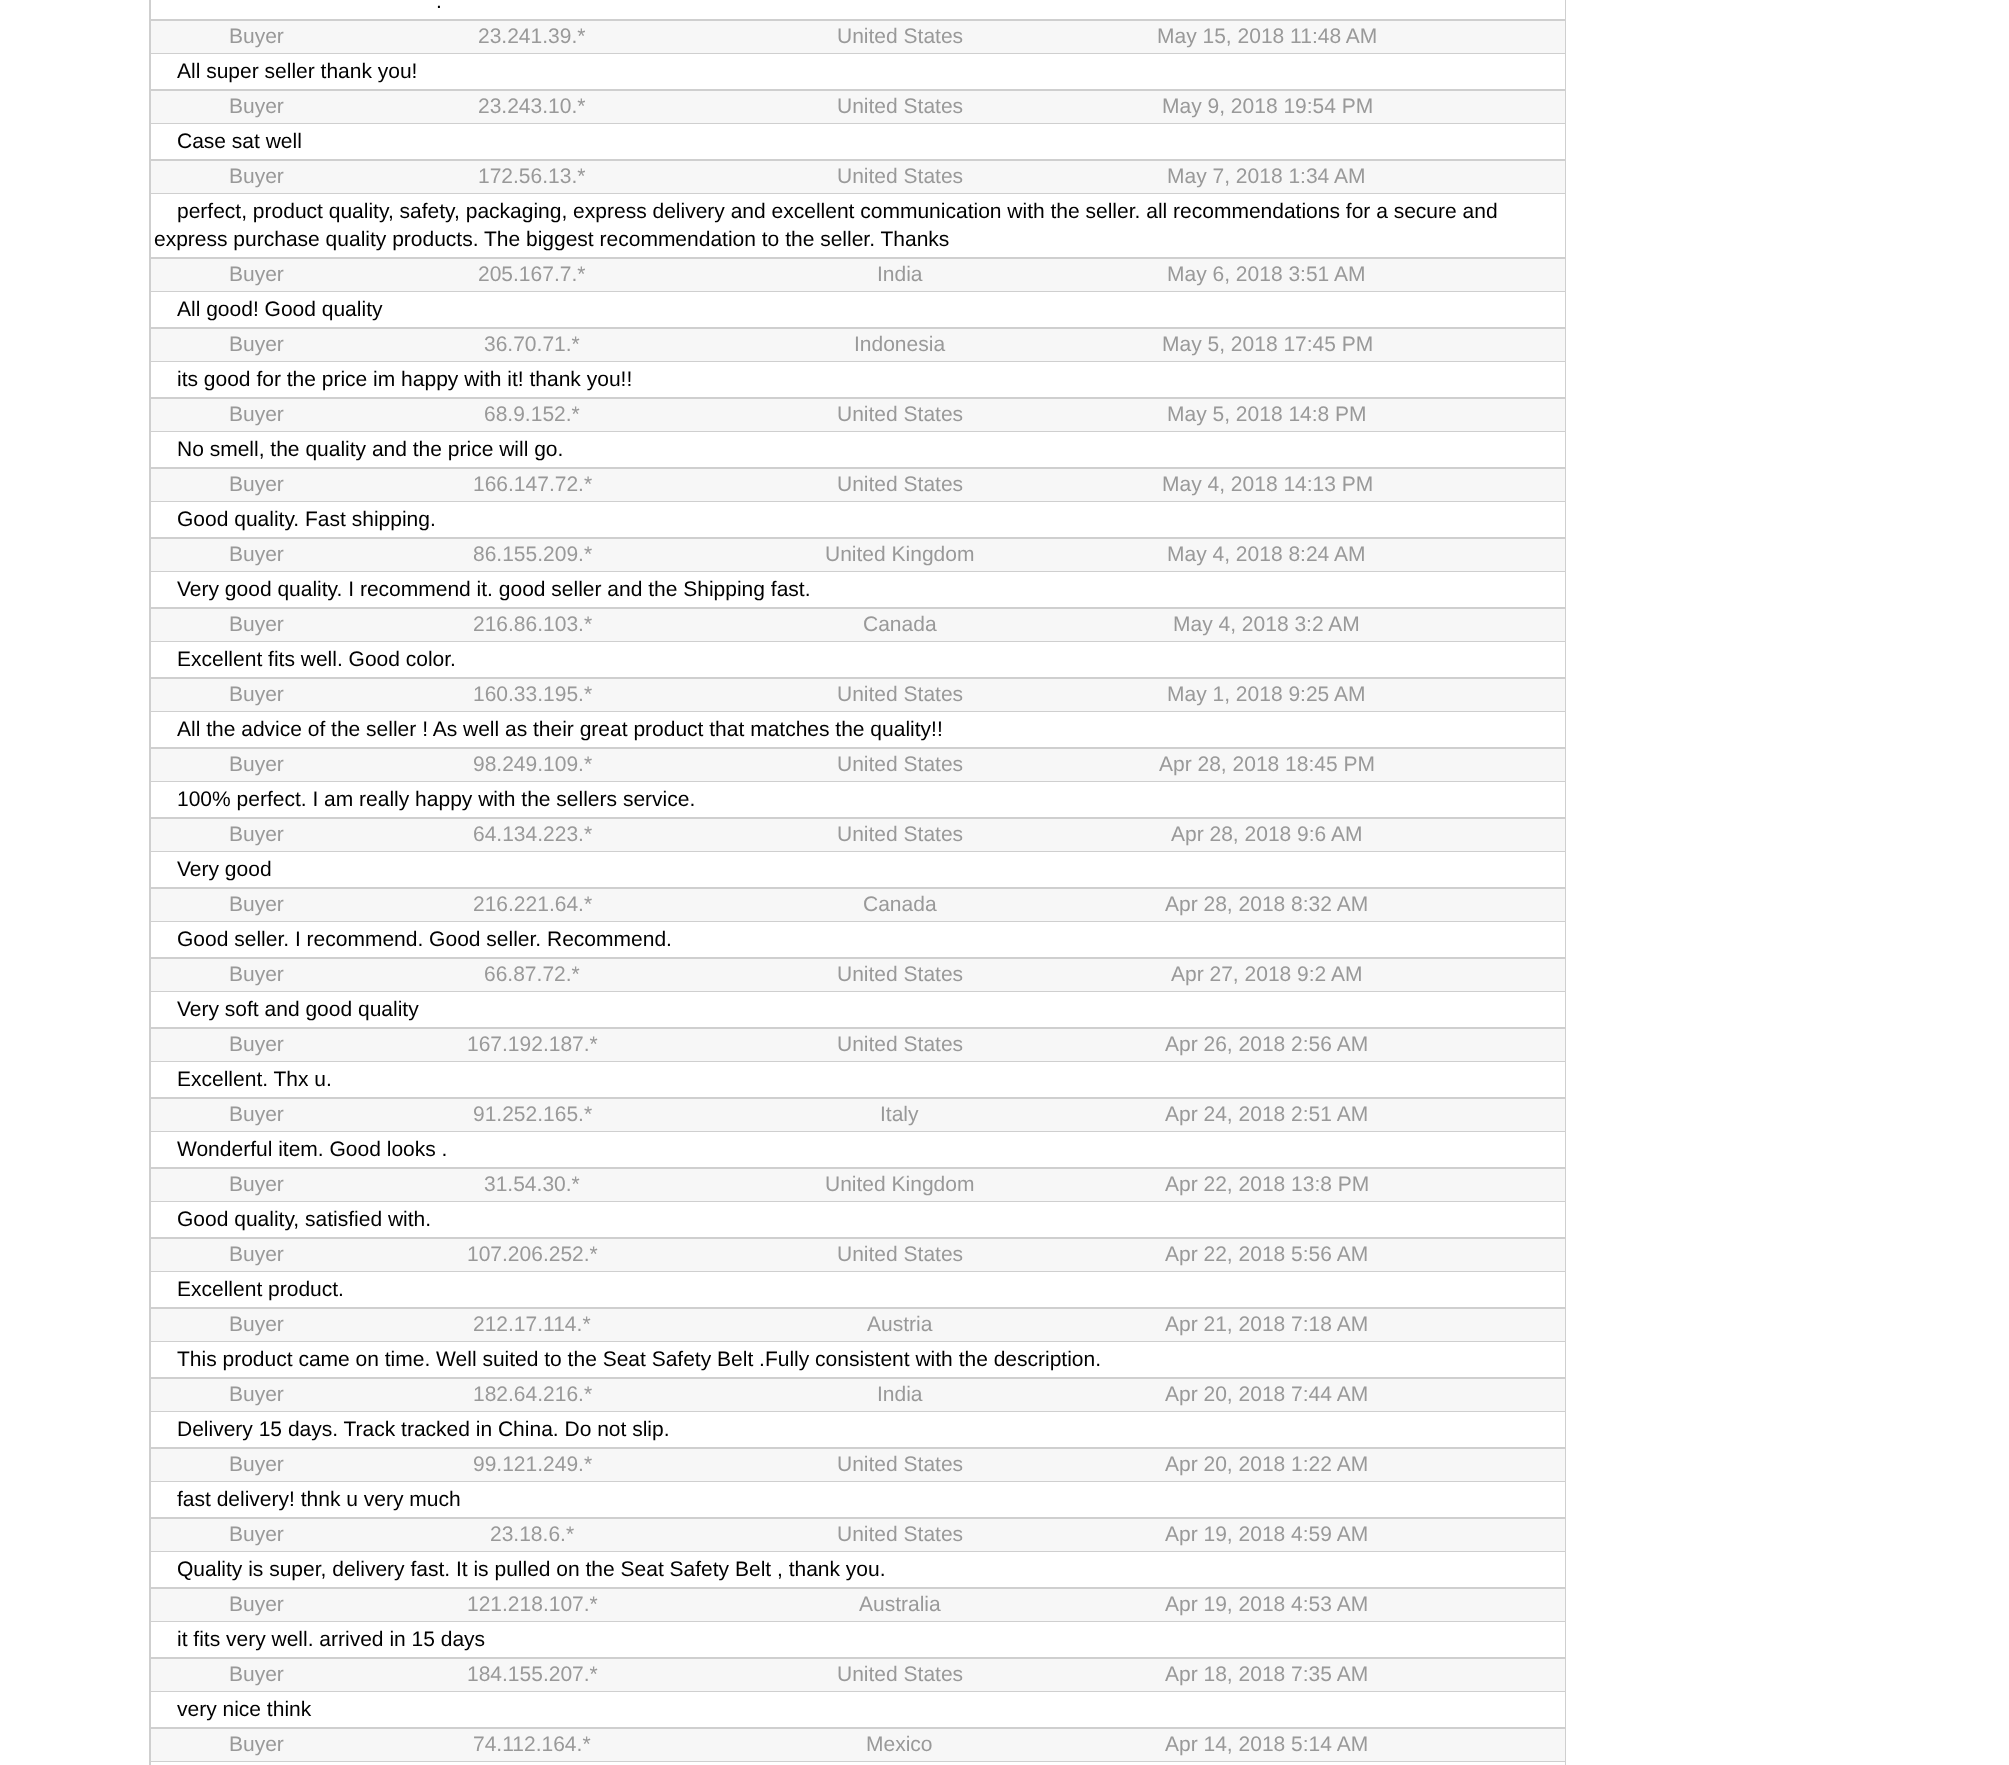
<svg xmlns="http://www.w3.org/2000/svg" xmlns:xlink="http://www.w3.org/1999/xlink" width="2009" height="1765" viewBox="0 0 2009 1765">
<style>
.cls-1{font:21px Liberation Sans;fill:#000000}
.cls-2{font:21px Liberation Sans;fill:#999999}
</style>
<rect width="100%" height="100%" fill="#ffffff"/>
<rect fill="#cfcfcf" x="149" y="0" width="1417" height="1765"/>
<rect fill="#ffffff" x="151" y="0" width="1414" height="19"/>
<rect fill="#f7f7f7" x="151" y="21" width="1414" height="32"/>
<rect fill="#ffffff" x="151" y="54" width="1414" height="35"/>
<rect fill="#f7f7f7" x="151" y="91" width="1414" height="32"/>
<rect fill="#ffffff" x="151" y="124" width="1414" height="35"/>
<rect fill="#f7f7f7" x="151" y="161" width="1414" height="32"/>
<rect fill="#ffffff" x="151" y="194" width="1414" height="63"/>
<rect fill="#f7f7f7" x="151" y="259" width="1414" height="32"/>
<rect fill="#ffffff" x="151" y="292" width="1414" height="35"/>
<rect fill="#f7f7f7" x="151" y="329" width="1414" height="32"/>
<rect fill="#ffffff" x="151" y="362" width="1414" height="35"/>
<rect fill="#f7f7f7" x="151" y="399" width="1414" height="32"/>
<rect fill="#ffffff" x="151" y="432" width="1414" height="35"/>
<rect fill="#f7f7f7" x="151" y="469" width="1414" height="32"/>
<rect fill="#ffffff" x="151" y="502" width="1414" height="35"/>
<rect fill="#f7f7f7" x="151" y="539" width="1414" height="32"/>
<rect fill="#ffffff" x="151" y="572" width="1414" height="35"/>
<rect fill="#f7f7f7" x="151" y="609" width="1414" height="32"/>
<rect fill="#ffffff" x="151" y="642" width="1414" height="35"/>
<rect fill="#f7f7f7" x="151" y="679" width="1414" height="32"/>
<rect fill="#ffffff" x="151" y="712" width="1414" height="35"/>
<rect fill="#f7f7f7" x="151" y="749" width="1414" height="32"/>
<rect fill="#ffffff" x="151" y="782" width="1414" height="35"/>
<rect fill="#f7f7f7" x="151" y="819" width="1414" height="32"/>
<rect fill="#ffffff" x="151" y="852" width="1414" height="35"/>
<rect fill="#f7f7f7" x="151" y="889" width="1414" height="32"/>
<rect fill="#ffffff" x="151" y="922" width="1414" height="35"/>
<rect fill="#f7f7f7" x="151" y="959" width="1414" height="32"/>
<rect fill="#ffffff" x="151" y="992" width="1414" height="35"/>
<rect fill="#f7f7f7" x="151" y="1029" width="1414" height="32"/>
<rect fill="#ffffff" x="151" y="1062" width="1414" height="35"/>
<rect fill="#f7f7f7" x="151" y="1099" width="1414" height="32"/>
<rect fill="#ffffff" x="151" y="1132" width="1414" height="35"/>
<rect fill="#f7f7f7" x="151" y="1169" width="1414" height="32"/>
<rect fill="#ffffff" x="151" y="1202" width="1414" height="35"/>
<rect fill="#f7f7f7" x="151" y="1239" width="1414" height="32"/>
<rect fill="#ffffff" x="151" y="1272" width="1414" height="35"/>
<rect fill="#f7f7f7" x="151" y="1309" width="1414" height="32"/>
<rect fill="#ffffff" x="151" y="1342" width="1414" height="35"/>
<rect fill="#f7f7f7" x="151" y="1379" width="1414" height="32"/>
<rect fill="#ffffff" x="151" y="1412" width="1414" height="35"/>
<rect fill="#f7f7f7" x="151" y="1449" width="1414" height="32"/>
<rect fill="#ffffff" x="151" y="1482" width="1414" height="35"/>
<rect fill="#f7f7f7" x="151" y="1519" width="1414" height="32"/>
<rect fill="#ffffff" x="151" y="1552" width="1414" height="35"/>
<rect fill="#f7f7f7" x="151" y="1589" width="1414" height="32"/>
<rect fill="#ffffff" x="151" y="1622" width="1414" height="35"/>
<rect fill="#f7f7f7" x="151" y="1659" width="1414" height="32"/>
<rect fill="#ffffff" x="151" y="1692" width="1414" height="35"/>
<rect fill="#f7f7f7" x="151" y="1729" width="1414" height="32"/>
<rect fill="#ffffff" x="151" y="1762" width="1414" height="3"/>
<text class="cls-1" x="436" y="8">.</text>
<text class="cls-2" x="229" y="43">Buyer</text>
<text class="cls-2" x="478" y="43">23.241.39.*</text>
<text class="cls-2" x="837" y="43">United States</text>
<text class="cls-2" x="1157" y="43">May 15, 2018 11:48 AM</text>
<text class="cls-1" x="177" y="78">All super seller thank you!</text>
<text class="cls-2" x="229" y="113">Buyer</text>
<text class="cls-2" x="478" y="113">23.243.10.*</text>
<text class="cls-2" x="837" y="113">United States</text>
<text class="cls-2" x="1162" y="113">May 9, 2018 19:54 PM</text>
<text class="cls-1" x="177" y="148">Case sat well</text>
<text class="cls-2" x="229" y="183">Buyer</text>
<text class="cls-2" x="478" y="183">172.56.13.*</text>
<text class="cls-2" x="837" y="183">United States</text>
<text class="cls-2" x="1167" y="183">May 7, 2018 1:34 AM</text>
<text class="cls-1" x="177" y="218">perfect, product quality, safety, packaging, express delivery and excellent communication with the seller. all recommendations for a secure and</text>
<text class="cls-1" x="154" y="246">express purchase quality products. The biggest recommendation to the seller. Thanks</text>
<text class="cls-2" x="229" y="281">Buyer</text>
<text class="cls-2" x="478" y="281">205.167.7.*</text>
<text class="cls-2" x="877" y="281">India</text>
<text class="cls-2" x="1167" y="281">May 6, 2018 3:51 AM</text>
<text class="cls-1" x="177" y="316">All good! Good quality</text>
<text class="cls-2" x="229" y="351">Buyer</text>
<text class="cls-2" x="484" y="351">36.70.71.*</text>
<text class="cls-2" x="854" y="351">Indonesia</text>
<text class="cls-2" x="1162" y="351">May 5, 2018 17:45 PM</text>
<text class="cls-1" x="177" y="386">its good for the price im happy with it! thank you!!</text>
<text class="cls-2" x="229" y="421">Buyer</text>
<text class="cls-2" x="484" y="421">68.9.152.*</text>
<text class="cls-2" x="837" y="421">United States</text>
<text class="cls-2" x="1167" y="421">May 5, 2018 14:8 PM</text>
<text class="cls-1" x="177" y="456">No smell, the quality and the price will go.</text>
<text class="cls-2" x="229" y="491">Buyer</text>
<text class="cls-2" x="473" y="491">166.147.72.*</text>
<text class="cls-2" x="837" y="491">United States</text>
<text class="cls-2" x="1162" y="491">May 4, 2018 14:13 PM</text>
<text class="cls-1" x="177" y="526">Good quality. Fast shipping.</text>
<text class="cls-2" x="229" y="561">Buyer</text>
<text class="cls-2" x="473" y="561">86.155.209.*</text>
<text class="cls-2" x="825" y="561">United Kingdom</text>
<text class="cls-2" x="1167" y="561">May 4, 2018 8:24 AM</text>
<text class="cls-1" x="177" y="596">Very good quality. I recommend it. good seller and the Shipping fast.</text>
<text class="cls-2" x="229" y="631">Buyer</text>
<text class="cls-2" x="473" y="631">216.86.103.*</text>
<text class="cls-2" x="863" y="631">Canada</text>
<text class="cls-2" x="1173" y="631">May 4, 2018 3:2 AM</text>
<text class="cls-1" x="177" y="666">Excellent fits well. Good color.</text>
<text class="cls-2" x="229" y="701">Buyer</text>
<text class="cls-2" x="473" y="701">160.33.195.*</text>
<text class="cls-2" x="837" y="701">United States</text>
<text class="cls-2" x="1167" y="701">May 1, 2018 9:25 AM</text>
<text class="cls-1" x="177" y="736">All the advice of the seller ! As well as their great product that matches the quality!!</text>
<text class="cls-2" x="229" y="771">Buyer</text>
<text class="cls-2" x="473" y="771">98.249.109.*</text>
<text class="cls-2" x="837" y="771">United States</text>
<text class="cls-2" x="1159" y="771">Apr 28, 2018 18:45 PM</text>
<text class="cls-1" x="177" y="806">100% perfect. I am really happy with the sellers service.</text>
<text class="cls-2" x="229" y="841">Buyer</text>
<text class="cls-2" x="473" y="841">64.134.223.*</text>
<text class="cls-2" x="837" y="841">United States</text>
<text class="cls-2" x="1171" y="841">Apr 28, 2018 9:6 AM</text>
<text class="cls-1" x="177" y="876">Very good</text>
<text class="cls-2" x="229" y="911">Buyer</text>
<text class="cls-2" x="473" y="911">216.221.64.*</text>
<text class="cls-2" x="863" y="911">Canada</text>
<text class="cls-2" x="1165" y="911">Apr 28, 2018 8:32 AM</text>
<text class="cls-1" x="177" y="946">Good seller. I recommend. Good seller. Recommend.</text>
<text class="cls-2" x="229" y="981">Buyer</text>
<text class="cls-2" x="484" y="981">66.87.72.*</text>
<text class="cls-2" x="837" y="981">United States</text>
<text class="cls-2" x="1171" y="981">Apr 27, 2018 9:2 AM</text>
<text class="cls-1" x="177" y="1016">Very soft and good quality</text>
<text class="cls-2" x="229" y="1051">Buyer</text>
<text class="cls-2" x="467" y="1051">167.192.187.*</text>
<text class="cls-2" x="837" y="1051">United States</text>
<text class="cls-2" x="1165" y="1051">Apr 26, 2018 2:56 AM</text>
<text class="cls-1" x="177" y="1086">Excellent. Thx u.</text>
<text class="cls-2" x="229" y="1121">Buyer</text>
<text class="cls-2" x="473" y="1121">91.252.165.*</text>
<text class="cls-2" x="880" y="1121">Italy</text>
<text class="cls-2" x="1165" y="1121">Apr 24, 2018 2:51 AM</text>
<text class="cls-1" x="177" y="1156">Wonderful item. Good looks .</text>
<text class="cls-2" x="229" y="1191">Buyer</text>
<text class="cls-2" x="484" y="1191">31.54.30.*</text>
<text class="cls-2" x="825" y="1191">United Kingdom</text>
<text class="cls-2" x="1165" y="1191">Apr 22, 2018 13:8 PM</text>
<text class="cls-1" x="177" y="1226">Good quality, satisfied with.</text>
<text class="cls-2" x="229" y="1261">Buyer</text>
<text class="cls-2" x="467" y="1261">107.206.252.*</text>
<text class="cls-2" x="837" y="1261">United States</text>
<text class="cls-2" x="1165" y="1261">Apr 22, 2018 5:56 AM</text>
<text class="cls-1" x="177" y="1296">Excellent product.</text>
<text class="cls-2" x="229" y="1331">Buyer</text>
<text class="cls-2" x="473" y="1331">212.17.114.*</text>
<text class="cls-2" x="867" y="1331">Austria</text>
<text class="cls-2" x="1165" y="1331">Apr 21, 2018 7:18 AM</text>
<text class="cls-1" x="177" y="1366">This product came on time. Well suited to the Seat Safety Belt .Fully consistent with the description.</text>
<text class="cls-2" x="229" y="1401">Buyer</text>
<text class="cls-2" x="473" y="1401">182.64.216.*</text>
<text class="cls-2" x="877" y="1401">India</text>
<text class="cls-2" x="1165" y="1401">Apr 20, 2018 7:44 AM</text>
<text class="cls-1" x="177" y="1436">Delivery 15 days. Track tracked in China. Do not slip.</text>
<text class="cls-2" x="229" y="1471">Buyer</text>
<text class="cls-2" x="473" y="1471">99.121.249.*</text>
<text class="cls-2" x="837" y="1471">United States</text>
<text class="cls-2" x="1165" y="1471">Apr 20, 2018 1:22 AM</text>
<text class="cls-1" x="177" y="1506">fast delivery! thnk u very much</text>
<text class="cls-2" x="229" y="1541">Buyer</text>
<text class="cls-2" x="490" y="1541">23.18.6.*</text>
<text class="cls-2" x="837" y="1541">United States</text>
<text class="cls-2" x="1165" y="1541">Apr 19, 2018 4:59 AM</text>
<text class="cls-1" x="177" y="1576">Quality is super, delivery fast. It is pulled on the Seat Safety Belt , thank you.</text>
<text class="cls-2" x="229" y="1611">Buyer</text>
<text class="cls-2" x="467" y="1611">121.218.107.*</text>
<text class="cls-2" x="859" y="1611">Australia</text>
<text class="cls-2" x="1165" y="1611">Apr 19, 2018 4:53 AM</text>
<text class="cls-1" x="177" y="1646">it fits very well. arrived in 15 days</text>
<text class="cls-2" x="229" y="1681">Buyer</text>
<text class="cls-2" x="467" y="1681">184.155.207.*</text>
<text class="cls-2" x="837" y="1681">United States</text>
<text class="cls-2" x="1165" y="1681">Apr 18, 2018 7:35 AM</text>
<text class="cls-1" x="177" y="1716">very nice think</text>
<text class="cls-2" x="229" y="1751">Buyer</text>
<text class="cls-2" x="473" y="1751">74.112.164.*</text>
<text class="cls-2" x="866" y="1751">Mexico</text>
<text class="cls-2" x="1165" y="1751">Apr 14, 2018 5:14 AM</text>
</svg>
